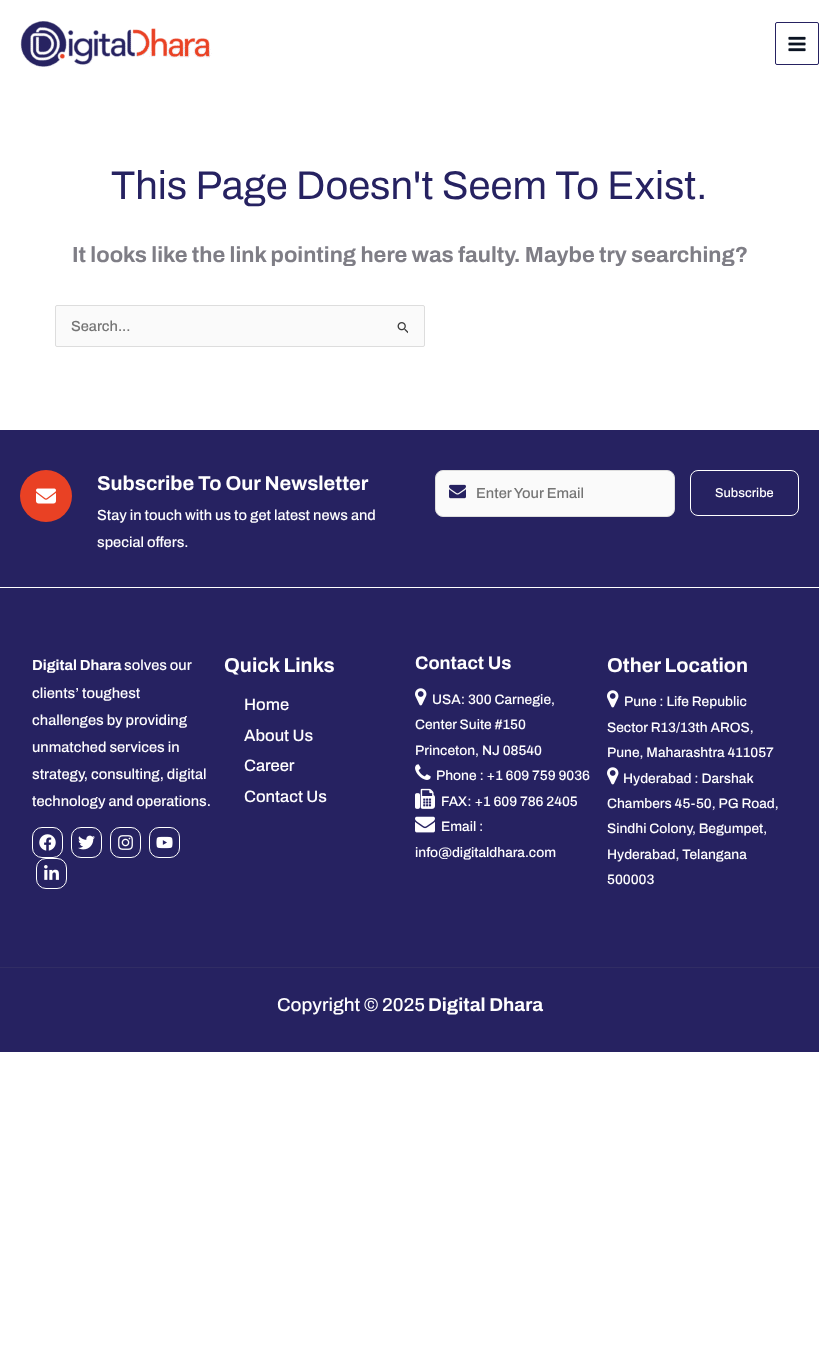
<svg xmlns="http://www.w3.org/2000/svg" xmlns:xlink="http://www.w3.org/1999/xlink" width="819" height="1357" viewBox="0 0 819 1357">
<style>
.cls-1{font:40px Archivo;fill:#262261}
.cls-2{font:bold 21.9px Archivo;fill:#7f7e86}
.cls-3{font:500 14.6px Archivo;fill:#757575}
.cls-4{font:bold 20px Archivo;fill:#fffeff}
.cls-5{font:500 14.6px Archivo;fill:#fffeff}
.cls-6{font:500 12.75px Archivo;fill:#fffeff}
.cls-7{font:bold 14.6px Archivo;fill:#fffeff}
.cls-8{font:500 16.5px Archivo;fill:#fffeff}
.cls-9{font:bold 18.25px Archivo;fill:#fffeff}
.cls-10{font:500 13.75px Archivo;fill:#fffeff}
.cls-11{font:500 18.75px Archivo;fill:#fffeff}
.cls-12{font:bold 18.75px Archivo;fill:#fffeff}
</style>
<rect width="100%" height="100%" fill="#ffffff"/>
<image xlink:href="image0.png" x="20" y="21" width="192" height="47"/>
<rect fill="none" stroke="#262261" x="775.5" y="22.5" width="43" height="42" rx="1.5"/>
<image xlink:href="image1.png" x="788" y="36" width="18" height="16"/>
<rect fill="#fafafa" stroke="#dddddd" x="55.5" y="305.5" width="369" height="41" rx="1.5"/>
<image xlink:href="image2.png" x="397" y="322" width="11" height="12"/>
<rect fill="#262261" x="0" y="430" width="819" height="157"/>
<circle fill="#e94124" cx="46" cy="496" r="26"/>
<image xlink:href="image3.png" x="36" y="488" width="20" height="16"/>
<rect fill="#fafafa" stroke="#dddddd" x="435.5" y="470.5" width="239" height="46" rx="7.5"/>
<image xlink:href="image4.png" x="449" y="484" width="17" height="15"/>
<rect fill="none" stroke="#ffffff" x="690.5" y="470.5" width="108" height="45" rx="7.5"/>
<rect fill="#262261" x="0" y="588" width="819" height="379"/>
<rect fill="none" stroke="#ffffff" x="32.5" y="827.5" width="30" height="30" rx="9.5"/>
<image xlink:href="image5.png" x="39" y="834" width="17" height="17"/>
<rect fill="none" stroke="#ffffff" x="71.5" y="827.5" width="30" height="30" rx="9.5"/>
<image xlink:href="image6.png" x="78" y="835" width="17" height="15"/>
<rect fill="none" stroke="#ffffff" x="110.5" y="827.5" width="30" height="30" rx="9.5"/>
<image xlink:href="image7.png" x="118" y="835" width="15" height="15"/>
<rect fill="none" stroke="#ffffff" x="149.5" y="827.5" width="30" height="30" rx="9.5"/>
<image xlink:href="image8.png" x="156" y="836" width="17" height="13"/>
<rect fill="none" stroke="#ffffff" x="36.5" y="858.5" width="30" height="30" rx="9.5"/>
<image xlink:href="image9.png" x="44" y="865" width="15" height="15"/>
<image xlink:href="image10.png" x="415" y="688" width="12" height="18"/>
<image xlink:href="image11.png" x="415" y="764" width="16" height="16"/>
<image xlink:href="image12.png" x="415" y="788" width="20" height="21"/>
<image xlink:href="image13.png" x="415" y="816" width="20" height="17"/>
<image xlink:href="image10.png" x="607" y="690" width="12" height="18"/>
<image xlink:href="image10.png" x="607" y="767" width="12" height="18"/>
<rect fill="#262261" x="0" y="968" width="819" height="84"/>
<rect fill="#312d64" x="0" y="967" width="819" height="1"/>
<text class="cls-1" x="111" y="199">This Page Doesn't Seem To Exist.</text>
<text class="cls-2" x="72" y="262">It looks like the link pointing here was faulty. Maybe try searching?</text>
<text class="cls-3" x="71" y="331">Search...</text>
<text class="cls-4" x="97" y="490">Subscribe To Our Newsletter</text>
<text class="cls-5"><tspan x="97" y="520">Stay in touch with us to get latest news and</tspan><tspan x="97" y="547">special offers.</tspan></text>
<text class="cls-3" x="476" y="498">Enter Your Email</text>
<text class="cls-6" x="715" y="497">Subscribe</text>
<text class="cls-7" x="32" y="670">Digital Dhara</text>
<text class="cls-5" x="124" y="670">solves our</text>
<text class="cls-5"><tspan x="32" y="698">clients’ toughest</tspan><tspan x="32" y="725">challenges by providing</tspan><tspan x="32" y="752">unmatched services in</tspan><tspan x="32" y="779">strategy, consulting, digital</tspan><tspan x="32" y="806">technology and operations.</tspan></text>
<text class="cls-4" x="224" y="672">Quick Links</text>
<text class="cls-8"><tspan x="244" y="710">Home</tspan><tspan x="244" y="741">About Us</tspan><tspan x="244" y="771">Career</tspan><tspan x="244" y="802">Contact Us</tspan></text>
<text class="cls-9" x="415" y="669">Contact Us</text>
<text class="cls-10" x="432" y="704">USA: 300 Carnegie,</text>
<text class="cls-10"><tspan x="415" y="729">Center Suite #150</tspan><tspan x="415" y="755">Princeton, NJ 08540</tspan></text>
<text class="cls-10" x="436" y="780">Phone : +1 609 759 9036</text>
<text class="cls-10"><tspan x="441" y="806">FAX: +1 609 786 2405</tspan><tspan x="441" y="831">Email :</tspan></text>
<text class="cls-10" x="415" y="857">info@digitaldhara.com</text>
<text class="cls-4" x="607" y="672">Other Location</text>
<text class="cls-10" x="624" y="706">Pune : Life Republic</text>
<text class="cls-10"><tspan x="607" y="732">Sector R13/13th AROS,</tspan><tspan x="607" y="757">Pune, Maharashtra 411057</tspan></text>
<text class="cls-10" x="623" y="783">Hyderabad : Darshak</text>
<text class="cls-10"><tspan x="607" y="808">Chambers 45-50, PG Road,</tspan><tspan x="607" y="833">Sindhi Colony, Begumpet,</tspan><tspan x="607" y="859">Hyderabad, Telangana</tspan><tspan x="607" y="884">500003</tspan></text>
<text class="cls-11" x="277" y="1011">Copyright © 2025</text>
<text class="cls-12" x="428" y="1011">Digital Dhara</text>
</svg>
